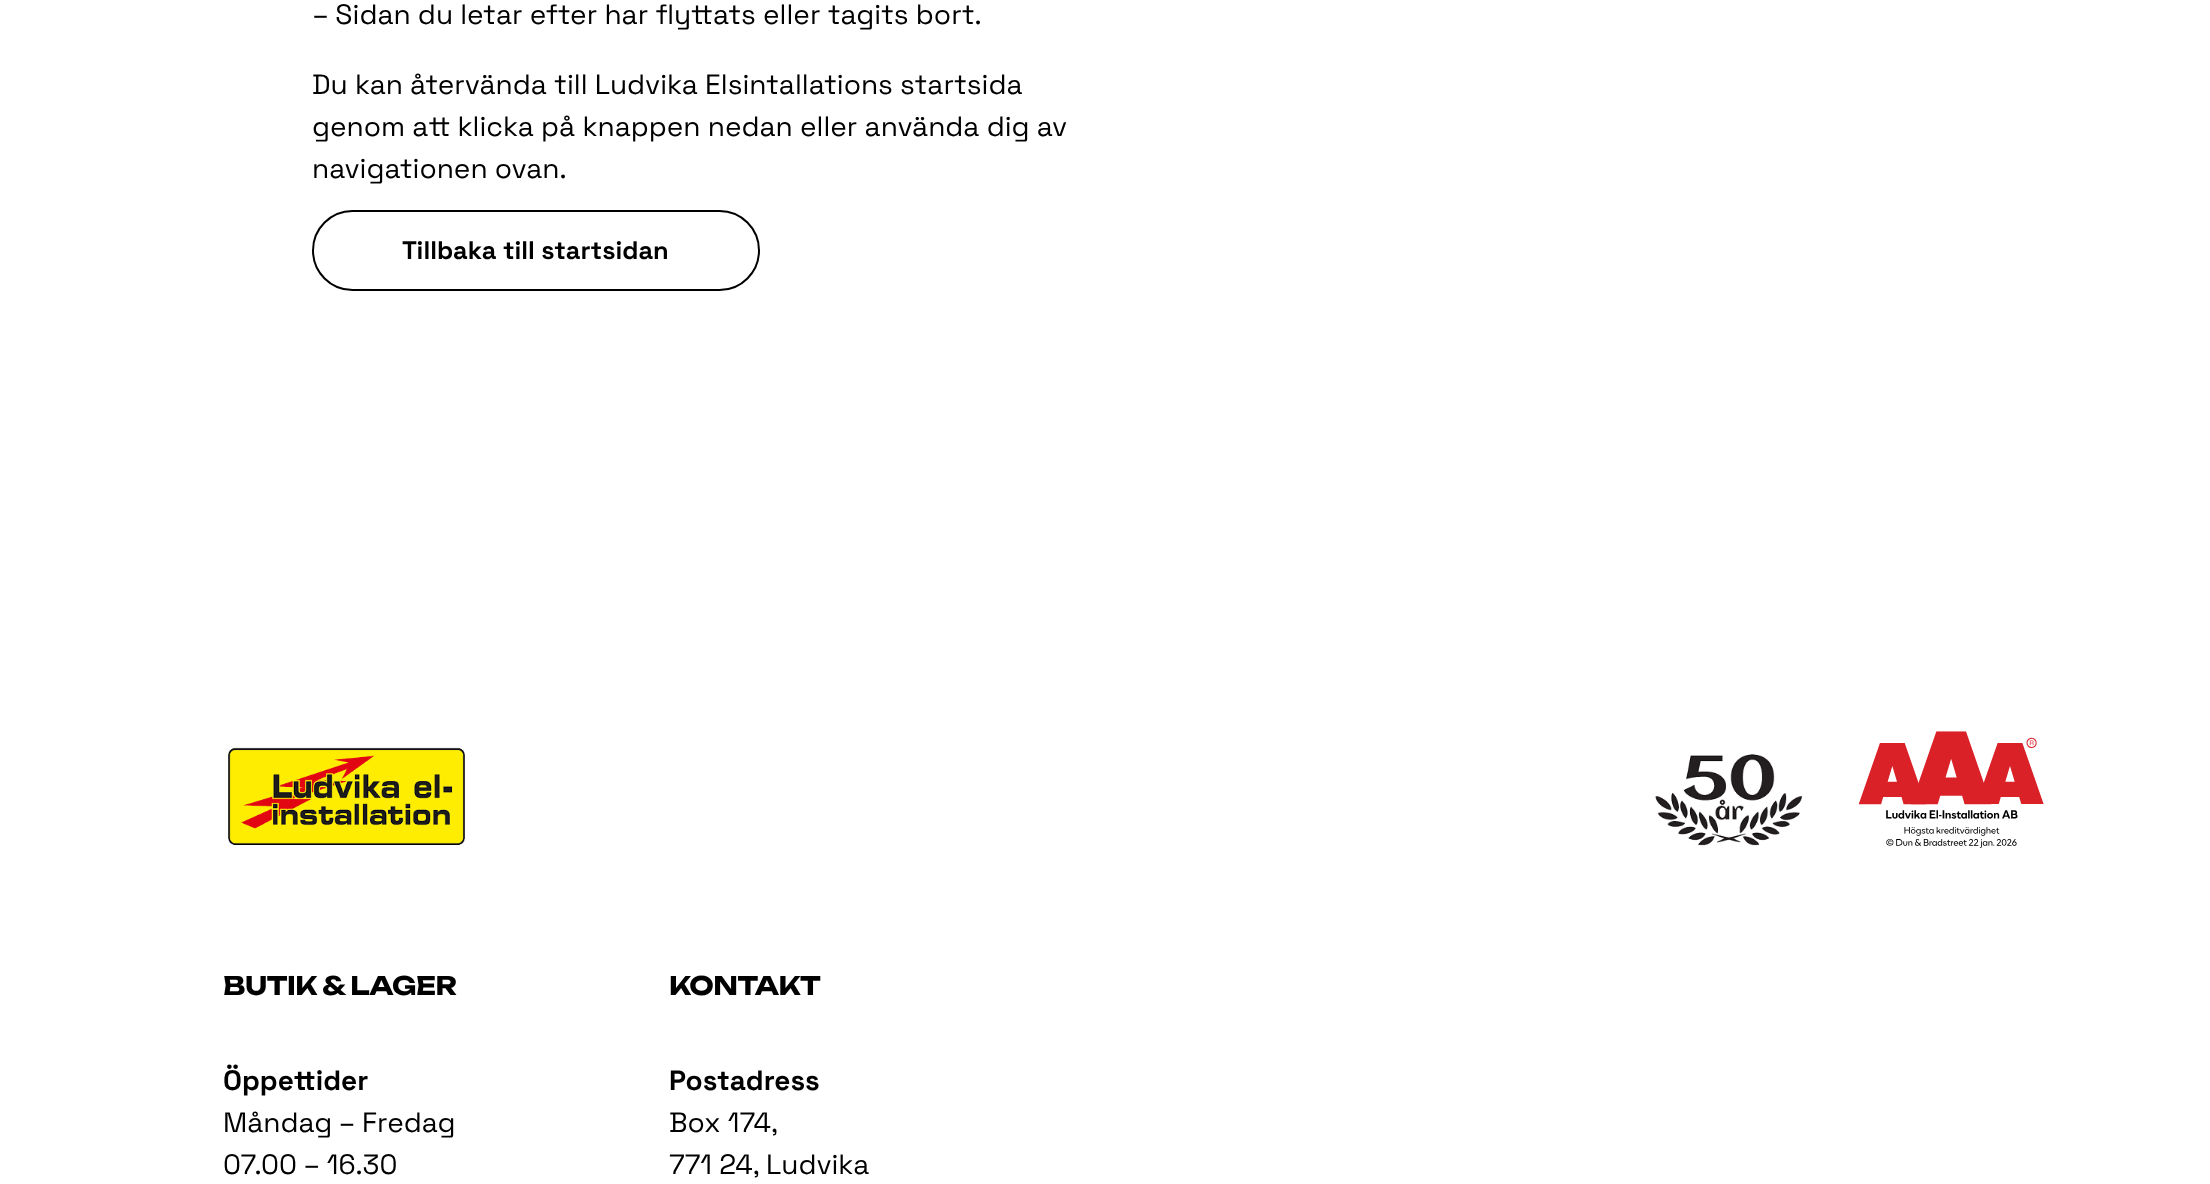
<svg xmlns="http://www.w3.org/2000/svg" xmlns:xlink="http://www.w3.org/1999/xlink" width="2210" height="1184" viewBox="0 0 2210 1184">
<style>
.cls-1{font:28px Space Grotesk;fill:#000000}
.cls-2{font:bold 25.4px Space Grotesk;fill:#000000}
.cls-3{font:bold 25.4px Unbounded;letter-spacing:-0.5px;fill:#000000}
.cls-4{font:bold 28px Space Grotesk;fill:#000000}
</style>
<rect width="100%" height="100%" fill="#ffffff"/>
<rect fill="none" stroke="#000000" stroke-width="2" x="313" y="211" width="446" height="79" rx="39.5"/>
<image xlink:href="image0.png" x="228" y="747" width="237" height="98"/>
<image xlink:href="image1.png" x="1655" y="754" width="147" height="92"/>
<image xlink:href="image2.png" x="1858" y="731" width="186" height="117"/>
<text class="cls-1" x="312" y="24">– Sidan du letar efter har flyttats eller tagits bort.</text>
<text class="cls-1"><tspan x="312" y="94">Du kan återvända till Ludvika Elsintallations startsida</tspan><tspan x="312" y="136">genom att klicka på knappen nedan eller använda dig av</tspan><tspan x="312" y="178">navigationen ovan.</tspan></text>
<text class="cls-2" x="402" y="259">Tillbaka till startsidan</text>
<text class="cls-3" x="223" y="995">BUTIK &amp; LAGER</text>
<text class="cls-4" x="223" y="1090">Öppettider</text>
<text class="cls-1"><tspan x="223" y="1132">Måndag – Fredag</tspan><tspan x="223" y="1174">07.00 – 16.30</tspan></text>
<text class="cls-3" x="669" y="995">KONTAKT</text>
<text class="cls-4" x="669" y="1090">Postadress</text>
<text class="cls-1"><tspan x="669" y="1132">Box 174,</tspan><tspan x="669" y="1174">771 24, Ludvika</tspan></text>
</svg>
